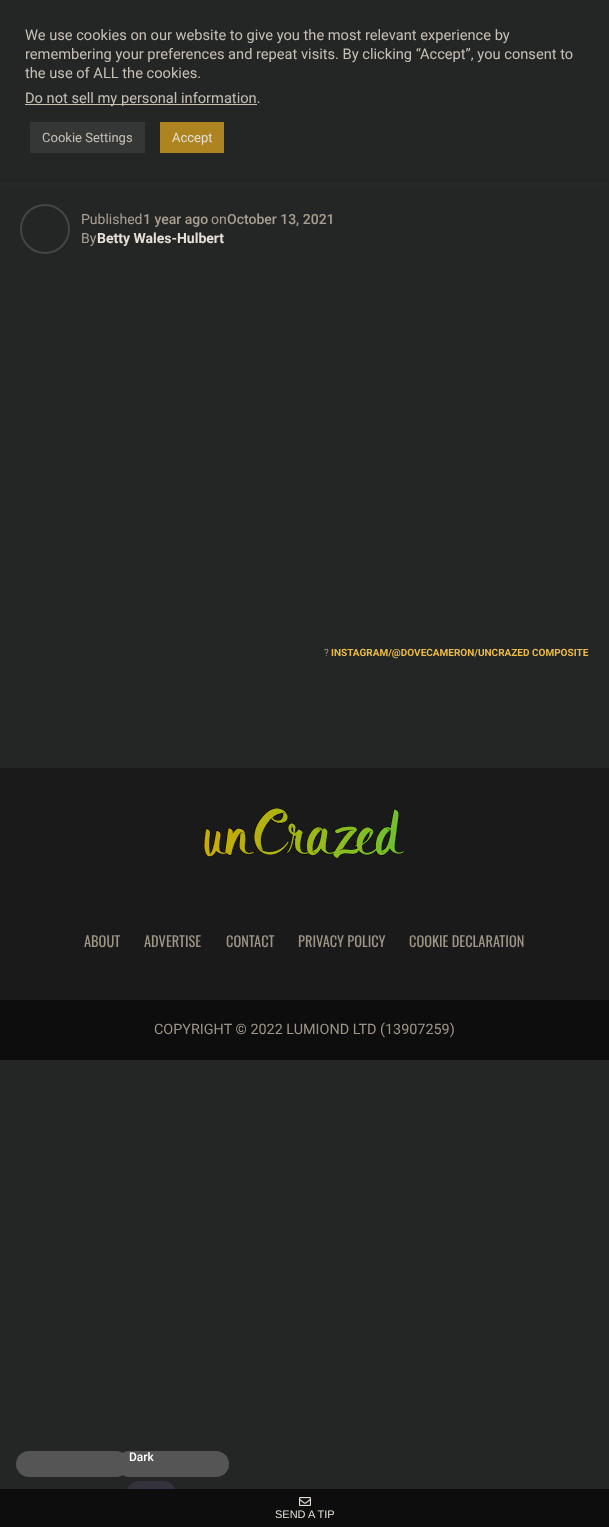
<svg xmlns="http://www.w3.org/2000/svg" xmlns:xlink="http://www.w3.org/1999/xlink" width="609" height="1527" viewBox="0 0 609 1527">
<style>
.cls-1{font:14.65px Roboto;fill:#c7c0b5}
.cls-2{font:13px Roboto;fill:#c7c0b5}
.cls-3{font:13px Roboto;fill:#e5e0d8}
.cls-4{font:14px Roboto;fill:#a9a093}
.cls-5{font:500 14px Roboto;fill:#a9a093}
.cls-6{font:bold 14px Roboto;fill:#e5e0d8}
.cls-7{font:10px Roboto;fill:#9e9587}
.cls-8{font:bold 10px Roboto;fill:#eabb46}
.cls-9{font:14.4px Oswald;fill:#9e9587}
.cls-10{font:14.4px Roboto;fill:#9e9587}
.cls-11{font:500 12px Roboto;fill:#ffffff}
.cls-12{font:11px Liberation Sans;fill:#e5e0d8}
</style>
<rect width="100%" height="100%" fill="#242525"/>
<rect fill="#505454" fill-opacity="0.3" filter="blur(5px)" x="0" y="-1" width="609" height="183"/>
<rect fill="#242525" x="0" y="0" width="609" height="183"/>
<rect fill="#c7c0b5" x="25" y="104" width="232" height="1"/>
<rect fill="#353737" x="30" y="122" width="115" height="31"/>
<rect fill="#ad841f" x="160" y="122" width="64" height="31"/>
<circle fill="none" stroke="#444646" stroke-width="2" cx="45" cy="229" r="24"/>
<rect fill="#191a19" x="0" y="768" width="609" height="232"/>
<image xlink:href="image0.png" x="204" y="808" width="200" height="50"/>
<rect fill="#0d0d0d" x="0" y="1000" width="609" height="60"/>
<rect fill="#555555" x="16" y="1451" width="100" height="26" rx="13"/>
<rect fill="#34323d" x="126" y="1481" width="50" height="26" rx="13"/>
<rect fill="#555555" x="116" y="1451" width="100" height="26" rx="13"/>
<rect fill="#555555" x="29" y="1451" width="100" height="26" rx="13"/>
<rect fill="#555555" x="129" y="1451" width="100" height="26" rx="13"/>
<rect fill="#0d0d0d" x="0" y="1489" width="609" height="38"/>
<image xlink:href="image1.png" x="299" y="1497" width="12" height="9"/>
<text class="cls-1"><tspan x="25" y="40">We use cookies on our website to give you the most relevant experience by</tspan><tspan x="25" y="59">remembering your preferences and repeat visits. By clicking “Accept”, you consent to</tspan><tspan x="25" y="78">the use of ALL the cookies.</tspan><tspan x="25" y="103">Do not sell my personal information.</tspan></text>
<text class="cls-2" x="42" y="142">Cookie Settings</text>
<text class="cls-3" x="172" y="142">Accept</text>
<text class="cls-4" x="81" y="224">Published</text>
<text class="cls-5" x="143" y="224">1 year ago</text>
<text class="cls-4" x="211" y="224">on</text>
<text class="cls-5" x="227" y="224">October 13, 2021</text>
<text class="cls-4" x="81" y="243">By</text>
<text class="cls-6" x="97" y="243">Betty Wales-Hulbert</text>
<text class="cls-7" x="324" y="656">?</text>
<text class="cls-8" x="331" y="656">INSTAGRAM/@DOVECAMERON/UNCRAZED COMPOSITE</text>
<text class="cls-9" x="84" y="947">ABOUT</text>
<text class="cls-9" x="144" y="947">ADVERTISE</text>
<text class="cls-9" x="226" y="947">CONTACT</text>
<text class="cls-9" x="298" y="947">PRIVACY POLICY</text>
<text class="cls-9" x="409" y="947">COOKIE DECLARATION</text>
<text class="cls-10" x="154" y="1034">COPYRIGHT © 2022 LUMIOND LTD (13907259)</text>
<text class="cls-11" x="129" y="1461">Dark</text>
<text class="cls-12" x="275" y="1518">SEND A TIP</text>
</svg>
